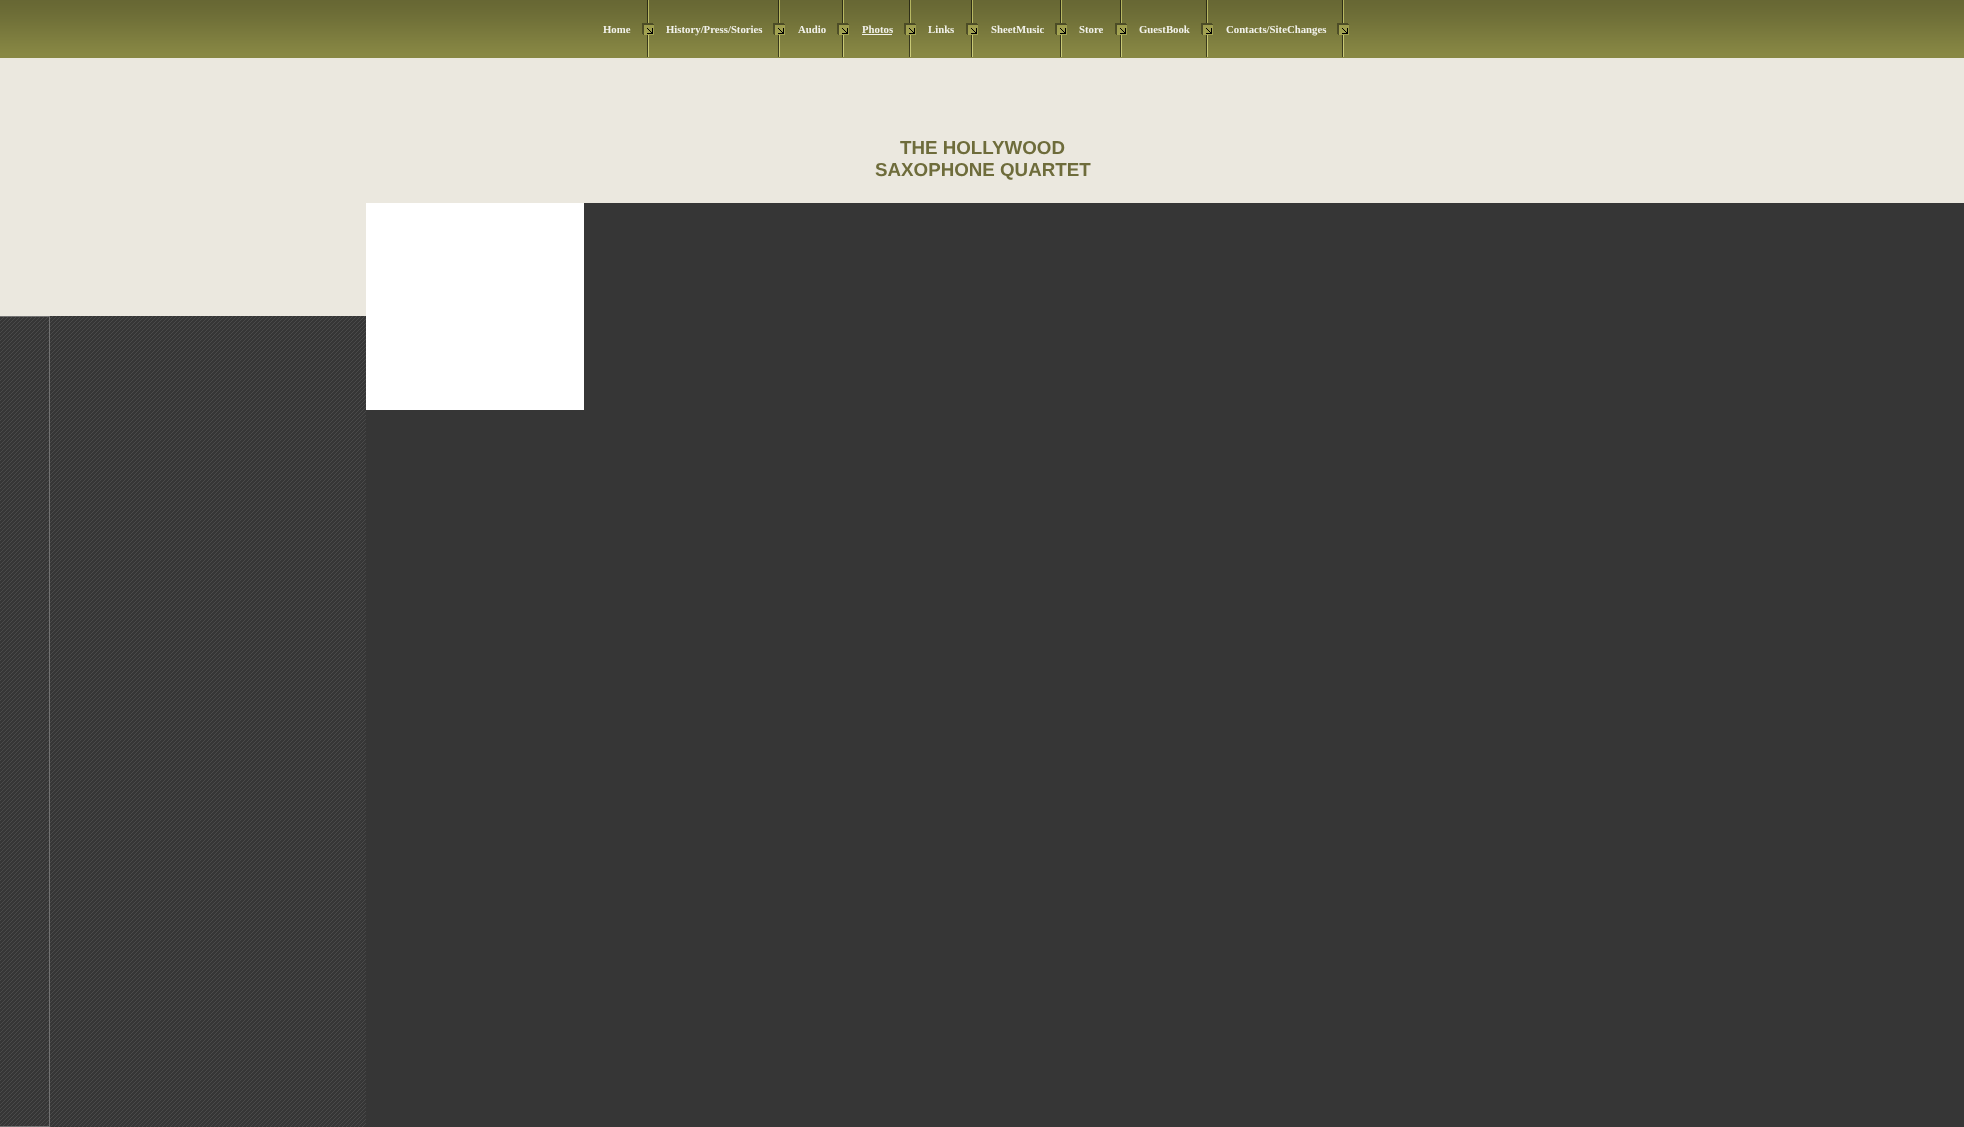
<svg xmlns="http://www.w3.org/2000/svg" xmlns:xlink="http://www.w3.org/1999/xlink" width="1964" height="1127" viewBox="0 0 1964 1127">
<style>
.cls-1{font:bold 10.75px Liberation Serif;fill:#f2f2ec}
.cls-2{font:bold 18.75px Liberation Sans;fill:#6e6c3b}
</style>
<rect width="100%" height="100%" fill="#ffffff"/>
<image xlink:href="image0.png" x="0" y="316" width="366" height="811"/>
<image xlink:href="image1.png" x="0" y="0" width="1964" height="58"/>
<image xlink:href="image2.png" x="642" y="0" width="11" height="57"/>
<image xlink:href="image3.png" x="643" y="24" width="11" height="11"/>
<image xlink:href="image4.png" x="773" y="0" width="11" height="57"/>
<image xlink:href="image3.png" x="774" y="24" width="11" height="11"/>
<image xlink:href="image4.png" x="837" y="0" width="11" height="57"/>
<image xlink:href="image3.png" x="838" y="24" width="11" height="11"/>
<rect fill="#f2f2ec" x="862" y="34" width="30" height="1"/>
<image xlink:href="image2.png" x="904" y="0" width="11" height="57"/>
<image xlink:href="image3.png" x="905" y="24" width="11" height="11"/>
<image xlink:href="image2.png" x="966" y="0" width="11" height="57"/>
<image xlink:href="image3.png" x="967" y="24" width="11" height="11"/>
<image xlink:href="image4.png" x="1055" y="0" width="11" height="57"/>
<image xlink:href="image3.png" x="1056" y="24" width="11" height="11"/>
<image xlink:href="image4.png" x="1115" y="0" width="11" height="57"/>
<image xlink:href="image3.png" x="1116" y="24" width="11" height="11"/>
<image xlink:href="image4.png" x="1201" y="0" width="11" height="57"/>
<image xlink:href="image3.png" x="1202" y="24" width="11" height="11"/>
<image xlink:href="image4.png" x="1337" y="0" width="11" height="57"/>
<image xlink:href="image3.png" x="1338" y="24" width="11" height="11"/>
<rect fill="#ebe8df" x="0" y="58" width="1964" height="258"/>
<rect fill="#737373" x="0" y="316" width="50" height="1"/>
<rect fill="#737373" x="49" y="316" width="1" height="811"/>
<rect fill="#737373" x="0" y="1126" width="50" height="1"/>
<rect fill="#363636" x="366" y="203" width="1598" height="924"/>
<rect fill="#ffffff" x="366" y="203" width="218" height="207"/>
<text class="cls-1" x="603" y="33">Home</text>
<text class="cls-1" x="666" y="33">History/Press/Stories</text>
<text class="cls-1" x="798" y="33">Audio</text>
<text class="cls-1" x="862" y="33">Photos</text>
<text class="cls-1" x="928" y="33">Links</text>
<text class="cls-1" x="991" y="33">SheetMusic</text>
<text class="cls-1" x="1079" y="33">Store</text>
<text class="cls-1" x="1139" y="33">GuestBook</text>
<text class="cls-1" x="1226" y="33">Contacts/SiteChanges</text>
<text class="cls-2" x="900" y="154">THE HOLLYWOOD</text>
<text class="cls-2" x="875" y="176">SAXOPHONE QUARTET</text>
</svg>
